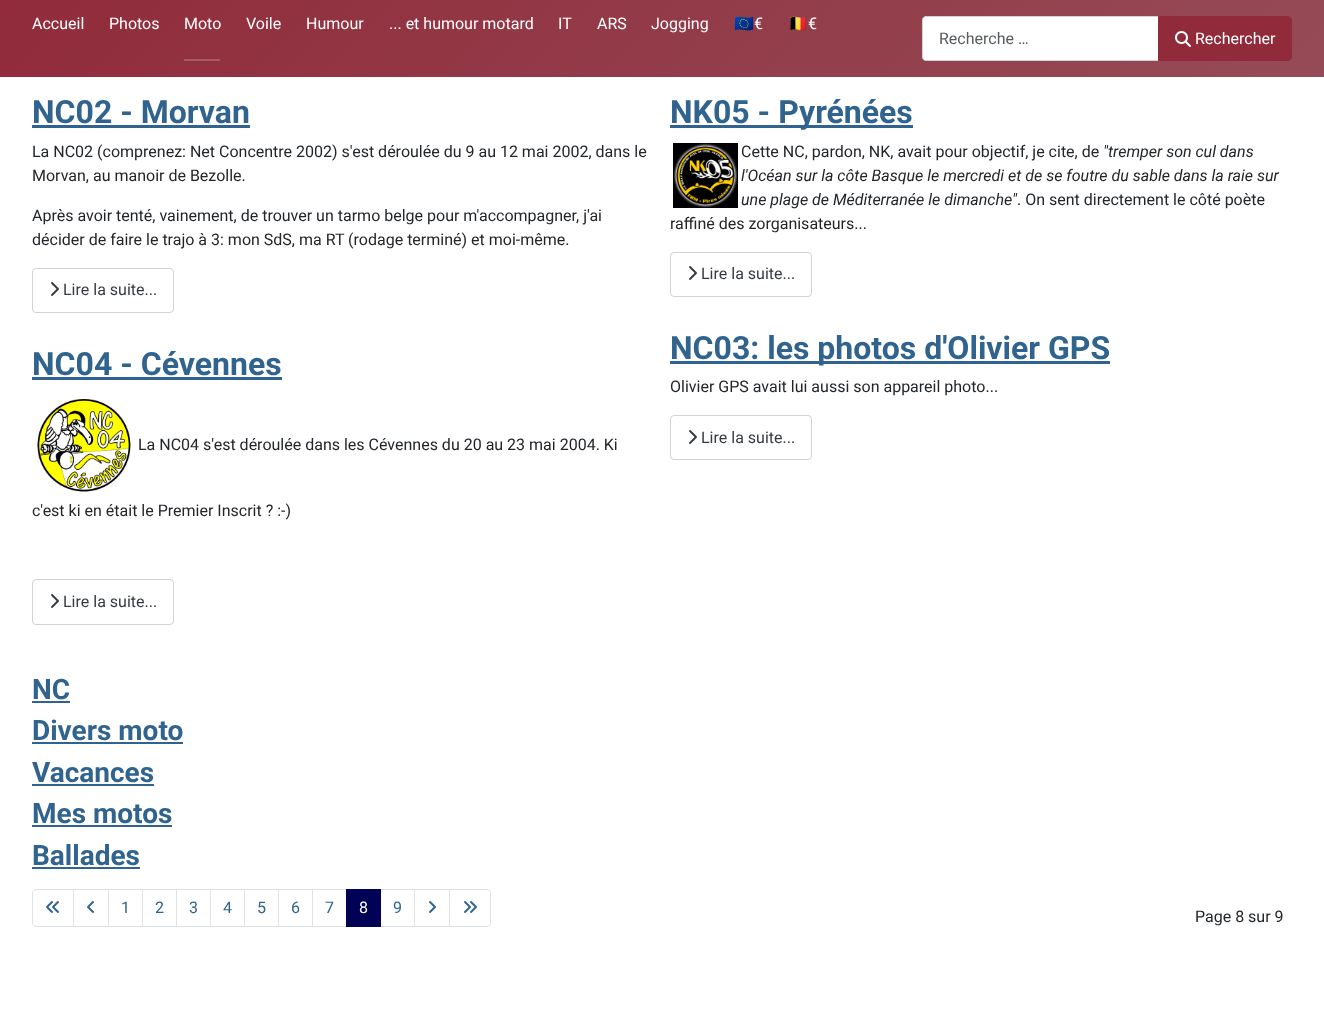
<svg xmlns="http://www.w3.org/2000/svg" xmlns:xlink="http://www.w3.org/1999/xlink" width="1324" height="1028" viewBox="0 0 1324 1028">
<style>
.cls-1{font:16px Roboto;fill:#ffffff}
.cls-2{font:16px Noto Color Emoji;fill:#ffffff}
.cls-3{font:16px Roboto;fill:#595c5f}
.cls-4{font:bold 32px Roboto;fill:#30638d}
.cls-5{font:16px Roboto;fill:#22262a}
.cls-6{font:16px Roboto;fill:#353b41}
.cls-7{font:italic 16px Roboto;fill:#22262a}
.cls-8{font:bold 28px Roboto;fill:#30638d}
.cls-9{font:16px Roboto;fill:#30638d}
</style>
<defs>
<linearGradient id="g1" gradientUnits="userSpaceOnUse" x1="312" y1="-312" x2="1012" y2="389"><stop offset="0" stop-color="#912b3b"/><stop offset="1" stop-color="#954b56"/></linearGradient>
</defs>
<rect width="100%" height="100%" fill="#ffffff"/>
<rect fill="url(#g1)" x="0" y="0" width="1324" height="77"/>
<rect fill="#a85a66" x="184" y="59" width="36" height="2"/>
<path fill="#ffffff" stroke="#ced4da" d="M926 16.5H1158.5V60.5H926C924 60.5 922.5 59 922.5 57V20C922.5 18 924 16.5 926 16.5Z"/>
<path fill="#912b3b" stroke="#912b3b" d="M1158.5 16.5H1288C1290 16.5 1291.5 18 1291.5 20V57C1291.5 59 1290 60.5 1288 60.5H1158.5Z"/>
<image xlink:href="image0.png" x="1175" y="31" width="16" height="16"/>
<rect fill="#30638d" x="32" y="125" width="218" height="3"/>
<rect fill="none" stroke="#ced4da" x="32.5" y="268.5" width="141" height="44" rx="3.5"/>
<image xlink:href="image1.png" x="51" y="282" width="8" height="14"/>
<rect fill="#30638d" x="670" y="125" width="243" height="3"/>
<image xlink:href="image2.png" x="673" y="143" width="65" height="65"/>
<rect fill="none" stroke="#ced4da" x="670.5" y="252.5" width="141" height="44" rx="3.5"/>
<image xlink:href="image1.png" x="689" y="266" width="8" height="14"/>
<rect fill="#30638d" x="32" y="377" width="250" height="3"/>
<image xlink:href="image3.png" x="37" y="399" width="94" height="93"/>
<rect fill="none" stroke="#ced4da" x="32.5" y="579.5" width="141" height="45" rx="3.5"/>
<image xlink:href="image1.png" x="51" y="594" width="8" height="14"/>
<rect fill="#30638d" x="670" y="361" width="440" height="3"/>
<rect fill="none" stroke="#ced4da" x="670.5" y="415.5" width="141" height="44" rx="3.5"/>
<image xlink:href="image1.png" x="689" y="430" width="8" height="14"/>
<rect fill="#30638d" x="32" y="701" width="38" height="2"/>
<rect fill="#30638d" x="32" y="742" width="151" height="2"/>
<rect fill="#30638d" x="32" y="784" width="122" height="2"/>
<rect fill="#30638d" x="32" y="825" width="140" height="2"/>
<rect fill="#30638d" x="32" y="867" width="108" height="2"/>
<path fill="none" stroke="#dfe3e7" d="M36 889.5H73.5V926.5H36C34 926.5 32.5 925 32.5 923V893C32.5 891 34 889.5 36 889.5Z"/>
<image xlink:href="image4.png" x="46" y="901" width="13" height="12"/>
<rect fill="none" stroke="#dfe3e7" x="73.5" y="889.5" width="35" height="37"/>
<image xlink:href="image5.png" x="87" y="901" width="7" height="12"/>
<rect fill="none" stroke="#dfe3e7" x="108.5" y="889.5" width="34" height="37"/>
<rect fill="none" stroke="#dfe3e7" x="142.5" y="889.5" width="34" height="37"/>
<rect fill="none" stroke="#dfe3e7" x="176.5" y="889.5" width="34" height="37"/>
<rect fill="none" stroke="#dfe3e7" x="210.5" y="889.5" width="34" height="37"/>
<rect fill="none" stroke="#dfe3e7" x="244.5" y="889.5" width="34" height="37"/>
<rect fill="none" stroke="#dfe3e7" x="278.5" y="889.5" width="34" height="37"/>
<rect fill="none" stroke="#dfe3e7" x="312.5" y="889.5" width="34" height="37"/>
<rect fill="none" stroke="#dfe3e7" x="380.5" y="889.5" width="34" height="37"/>
<rect fill="#010156" x="346" y="889" width="35" height="38"/>
<rect fill="none" stroke="#dfe3e7" x="414.5" y="889.5" width="35" height="37"/>
<image xlink:href="image6.png" x="429" y="901" width="7" height="12"/>
<path fill="#ffffff" stroke="#dfe3e7" d="M449.5 889.5H487C489 889.5 490.5 891 490.5 893V923C490.5 925 489 926.5 487 926.5H449.5Z"/>
<image xlink:href="image7.png" x="464" y="901" width="13" height="12"/>
<text class="cls-1" x="32" y="29">Accueil</text>
<text class="cls-1" x="109" y="29">Photos</text>
<text class="cls-1" x="184" y="29">Moto</text>
<text class="cls-1" x="246" y="29">Voile</text>
<text class="cls-1" x="306" y="29">Humour</text>
<text class="cls-1" x="389" y="29">... et humour motard</text>
<text class="cls-1" x="558" y="29">IT</text>
<text class="cls-1" x="597" y="29">ARS</text>
<text class="cls-1" x="651" y="29">Jogging</text>
<text class="cls-2" x="734" y="29">🇪🇺</text>
<text class="cls-1" x="754" y="29">€</text>
<text class="cls-2" x="788" y="29">🇧🇪</text>
<text class="cls-1" x="808" y="29">€</text>
<text class="cls-3" x="939" y="44">Recherche …</text>
<text class="cls-1" x="1195" y="44">Rechercher</text>
<text class="cls-4" x="32" y="123">NC02 - Morvan</text>
<text class="cls-5"><tspan x="32" y="157">La NC02 (comprenez: Net Concentre 2002) s'est déroulée du 9 au 12 mai 2002, dans le</tspan><tspan x="32" y="181">Morvan, au manoir de Bezolle.</tspan></text>
<text class="cls-5"><tspan x="32" y="221">Après avoir tenté, vainement, de trouver un tarmo belge pour m'accompagner, j'ai</tspan><tspan x="32" y="245">décider de faire le trajo à 3: mon SdS, ma RT (rodage terminé) et moi-même.</tspan></text>
<text class="cls-6" x="63" y="295">Lire la suite...</text>
<text class="cls-4" x="670" y="123">NK05 - Pyrénées</text>
<text class="cls-5" x="741" y="157">Cette NC, pardon, NK, avait pour objectif, je cite, de</text>
<text class="cls-7" x="1103" y="157">"tremper son cul dans</text>
<text class="cls-7"><tspan x="741" y="181">l'Océan sur la côte Basque le mercredi et de se foutre du sable dans la raie sur</tspan><tspan x="741" y="205">une plage de Méditerranée le dimanche"</tspan></text>
<text class="cls-5" x="1017" y="205">. On sent directement le côté poète</text>
<text class="cls-5" x="670" y="229">raffiné des zorganisateurs...</text>
<text class="cls-6" x="701" y="279">Lire la suite...</text>
<text class="cls-4" x="32" y="375">NC04 - Cévennes</text>
<text class="cls-5" x="138" y="450">La NC04 s'est déroulée dans les Cévennes du 20 au 23 mai 2004. Ki</text>
<text class="cls-5" x="32" y="516">c'est ki en était le Premier Inscrit ? :-)</text>
<text class="cls-6" x="63" y="607">Lire la suite...</text>
<text class="cls-4" x="670" y="359">NC03: les photos d'Olivier GPS</text>
<text class="cls-5" x="670" y="392">Olivier GPS avait lui aussi son appareil photo...</text>
<text class="cls-6" x="701" y="443">Lire la suite...</text>
<text class="cls-8"><tspan x="32" y="699">NC</tspan><tspan x="32" y="740">Divers moto</tspan><tspan x="32" y="782">Vacances</tspan><tspan x="32" y="823">Mes motos</tspan><tspan x="32" y="865">Ballades</tspan></text>
<text class="cls-9" x="121" y="913">1</text>
<text class="cls-9" x="155" y="913">2</text>
<text class="cls-9" x="189" y="913">3</text>
<text class="cls-9" x="223" y="913">4</text>
<text class="cls-9" x="257" y="913">5</text>
<text class="cls-9" x="291" y="913">6</text>
<text class="cls-9" x="325" y="913">7</text>
<text class="cls-1" x="359" y="913">8</text>
<text class="cls-9" x="393" y="913">9</text>
<text class="cls-5" x="1195" y="922">Page 8 sur 9</text>
</svg>
